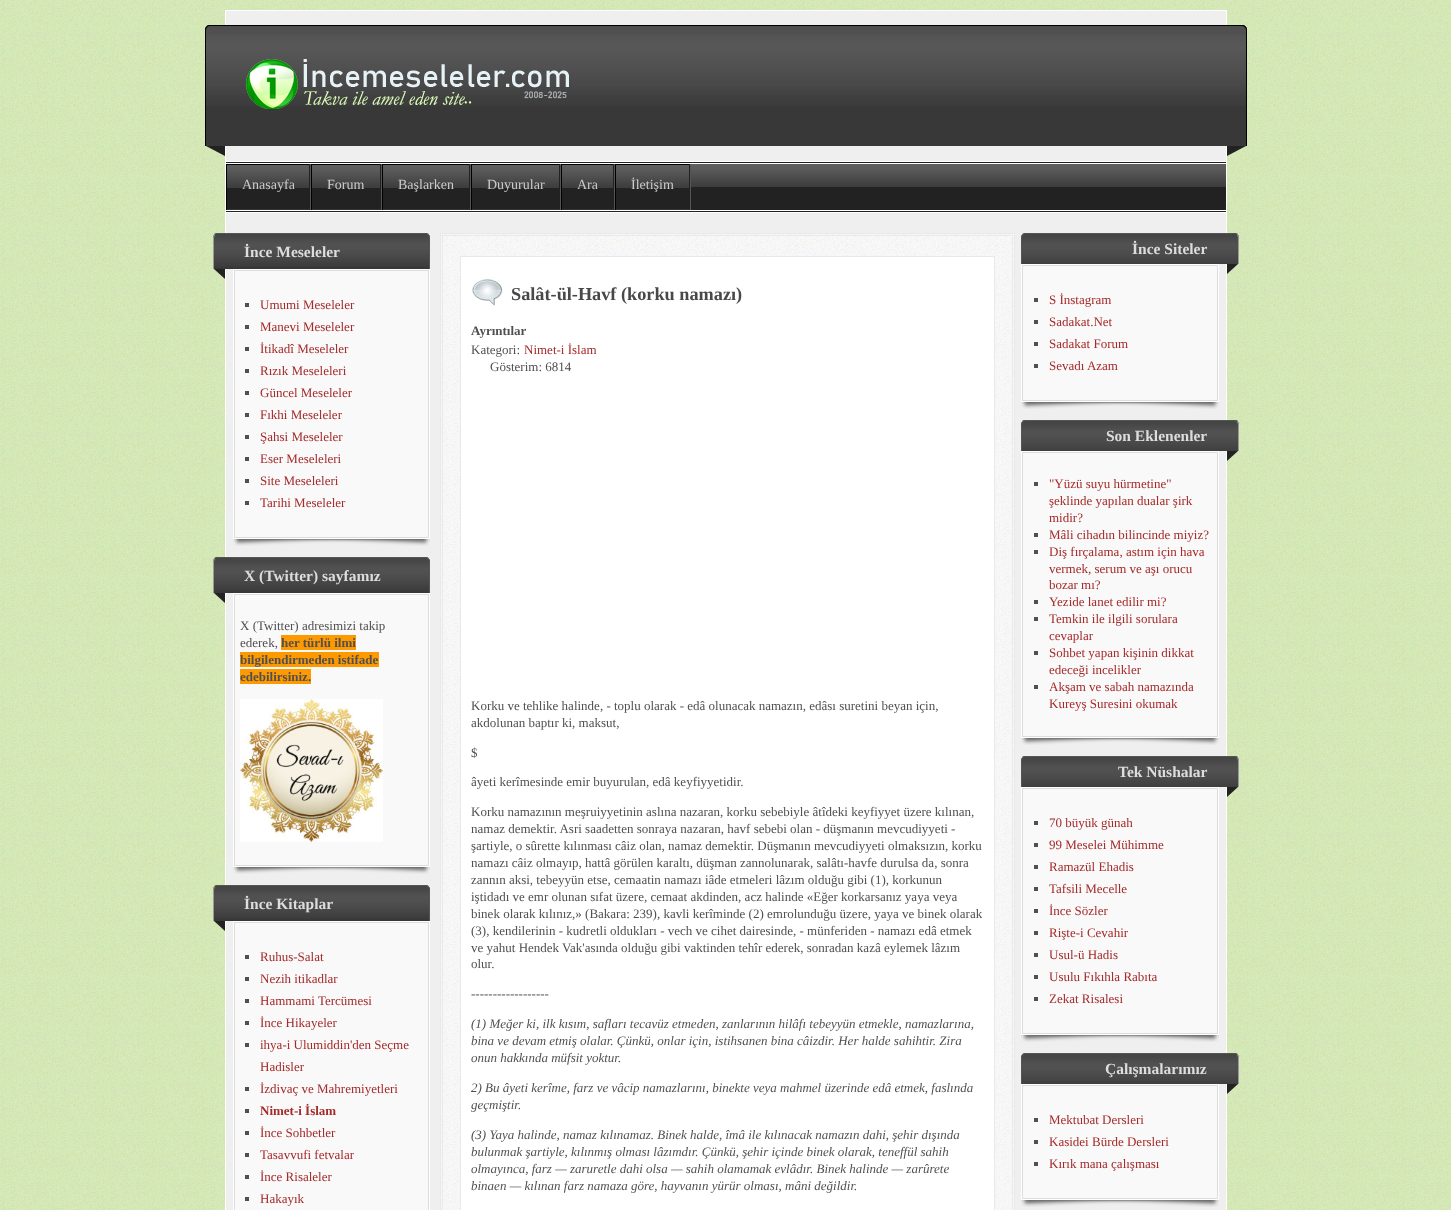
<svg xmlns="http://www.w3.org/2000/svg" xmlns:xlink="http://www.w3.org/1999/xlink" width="1451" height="1210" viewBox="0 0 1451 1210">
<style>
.cls-1{font:14px Liberation Serif;fill:#cccccc}
.cls-2{font:bold 15.5px Liberation Serif;fill:#dddddd}
.cls-3{font:13px Liberation Serif;fill:#a52a2a}
.cls-4{font:13px Liberation Serif;fill:#505050}
.cls-5{font:bold 13px Liberation Serif;fill:#505050}
.cls-6{font:bold 13px Liberation Serif;fill:#a52a2a}
.cls-7{font:bold 18.25px Liberation Serif;fill:#484848}
.cls-8{font:italic 13px Liberation Serif;fill:#505050}
</style>
<rect width="100%" height="100%" fill="#d3e8b2"/>
<image xlink:href="image0.png" x="0" y="0" width="1451" height="1210"/>
<rect fill="#efefef" stroke="#ffffff" x="225.5" y="10.5" width="1001" height="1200"/>
<path fill="#383838" d="M210 25H1242C1245 25 1247 27 1247 30V146H205V30C205 27 207 25 210 25Z"/>
<image xlink:href="image1.png" x="205" y="26" width="1042" height="80"/>
<path fill="#000000" fill-rule="evenodd" d="M210 25H1242C1245 25 1247 27 1247 30V146H205V30C205 27 207 25 210 25ZM210 26H1242C1244 26 1246 28 1246 30V146H206V30C206 28 208 26 210 26Z"/>
<image xlink:href="image2.png" x="245" y="59" width="324" height="50"/>
<path fill="#222222" d="M206 146H225V156Z"/>
<path fill="#222222" d="M1227 146H1246L1227 156Z"/>
<rect fill="#222222" x="226" y="162" width="1000" height="50"/>
<image xlink:href="image3.png" x="691" y="164" width="535" height="23"/>
<rect fill="#ffffff" x="226" y="161" width="1000" height="1"/>
<rect fill="#ffffff" x="226" y="163" width="1000" height="1"/>
<rect fill="#ffffff" x="226" y="210" width="1000" height="1"/>
<rect fill="#ffffff" x="226" y="212" width="1000" height="1"/>
<rect fill="#555555" x="310" y="164" width="1" height="46"/>
<image xlink:href="image4.png" x="227" y="165" width="82" height="23"/>
<rect fill="#000000" x="226" y="164" width="84" height="1"/>
<rect fill="#222222" x="309" y="164" width="1" height="1"/>
<rect fill="#333333" x="226" y="209" width="84" height="1"/>
<rect fill="#000000" x="226" y="164" width="1" height="46"/>
<rect fill="#555555" x="381" y="164" width="1" height="46"/>
<image xlink:href="image5.png" x="312" y="165" width="68" height="23"/>
<rect fill="#000000" x="311" y="164" width="70" height="1"/>
<rect fill="#222222" x="380" y="164" width="1" height="1"/>
<rect fill="#333333" x="311" y="209" width="70" height="1"/>
<rect fill="#000000" x="311" y="164" width="1" height="46"/>
<rect fill="#555555" x="470" y="164" width="1" height="46"/>
<image xlink:href="image6.png" x="383" y="165" width="86" height="23"/>
<rect fill="#000000" x="382" y="164" width="88" height="1"/>
<rect fill="#222222" x="469" y="164" width="1" height="1"/>
<rect fill="#333333" x="382" y="209" width="88" height="1"/>
<rect fill="#000000" x="382" y="164" width="1" height="46"/>
<rect fill="#555555" x="560" y="164" width="1" height="46"/>
<image xlink:href="image7.png" x="472" y="165" width="87" height="23"/>
<rect fill="#000000" x="471" y="164" width="89" height="1"/>
<rect fill="#222222" x="559" y="164" width="1" height="1"/>
<rect fill="#333333" x="471" y="209" width="89" height="1"/>
<rect fill="#000000" x="471" y="164" width="1" height="46"/>
<rect fill="#555555" x="614" y="164" width="1" height="46"/>
<image xlink:href="image8.png" x="562" y="165" width="51" height="23"/>
<rect fill="#000000" x="561" y="164" width="53" height="1"/>
<rect fill="#222222" x="613" y="164" width="1" height="1"/>
<rect fill="#333333" x="561" y="209" width="53" height="1"/>
<rect fill="#000000" x="561" y="164" width="1" height="46"/>
<rect fill="#555555" x="690" y="164" width="1" height="46"/>
<image xlink:href="image9.png" x="616" y="165" width="73" height="23"/>
<rect fill="#000000" x="615" y="164" width="75" height="1"/>
<rect fill="#222222" x="689" y="164" width="1" height="1"/>
<rect fill="#333333" x="615" y="209" width="75" height="1"/>
<rect fill="#000000" x="615" y="164" width="1" height="46"/>
<path fill="#383838" d="M218 233H425C428 233 430 235 430 238V269H213V238C213 235 215 233 218 233Z"/>
<image xlink:href="image10.png" x="213" y="234" width="217" height="33"/>
<path fill="#555555" d="M218 233C216 233 215 234 214 234L215 235L218 234H425L428 235L429 234C428 234 426 233 425 233Z"/>
<path fill="#555555" d="M429 269H430V238C430 236.5 429.5 235 428.5 234.5L428 235C428.5 236 429 237 429 238Z"/>
<path fill="#999999" d="M213 269H214V238C214 237 214.5 236 215 235L214.5 234.5C213.5 235 213 236.5 213 238Z"/>
<path fill="#222222" d="M214 269H225V279Z"/>
<rect fill="none" stroke="#ffffff" x="233.5" y="269.5" width="196" height="269"/>
<rect fill="#f9f9f9" stroke="#dddddd" x="234.5" y="270.5" width="194" height="267"/>
<rect fill="#505050" x="245" y="303" width="4" height="4"/>
<rect fill="#505050" x="245" y="325" width="4" height="4"/>
<rect fill="#505050" x="245" y="347" width="4" height="4"/>
<rect fill="#505050" x="245" y="369" width="4" height="4"/>
<rect fill="#505050" x="245" y="391" width="4" height="4"/>
<rect fill="#505050" x="245" y="413" width="4" height="4"/>
<rect fill="#505050" x="245" y="435" width="4" height="4"/>
<rect fill="#505050" x="245" y="457" width="4" height="4"/>
<rect fill="#505050" x="245" y="479" width="4" height="4"/>
<rect fill="#505050" x="245" y="501" width="4" height="4"/>
<image xlink:href="image11.png" x="233" y="539" width="197" height="7"/>
<image xlink:href="image12.png" x="233" y="539" width="197" height="7"/>
<path fill="#383838" d="M218 557H425C428 557 430 559 430 562V593H213V562C213 559 215 557 218 557Z"/>
<image xlink:href="image13.png" x="213" y="558" width="217" height="33"/>
<path fill="#555555" d="M218 557C216 557 215 558 214 558L215 559L218 558H425L428 559L429 558C428 558 426 557 425 557Z"/>
<path fill="#555555" d="M429 593H430V562C430 560.5 429.5 559 428.5 558.5L428 559C428.5 560 429 561 429 562Z"/>
<path fill="#999999" d="M213 593H214V562C214 561 214.5 560 215 559L214.5 558.5C213.5 559 213 560.5 213 562Z"/>
<path fill="#222222" d="M214 593H225V603Z"/>
<rect fill="none" stroke="#ffffff" x="233.5" y="593.5" width="196" height="273"/>
<rect fill="#f9f9f9" stroke="#dddddd" x="234.5" y="594.5" width="194" height="271"/>
<rect fill="#ff9900" x="281" y="635" width="75" height="15"/>
<rect fill="#ff9900" x="240" y="652" width="139" height="15"/>
<rect fill="#ff9900" x="240" y="669" width="71" height="15"/>
<image xlink:href="image14.png" x="240" y="699" width="143" height="143"/>
<image xlink:href="image11.png" x="233" y="867" width="197" height="7"/>
<image xlink:href="image12.png" x="233" y="867" width="197" height="7"/>
<path fill="#383838" d="M218 885H425C428 885 430 887 430 890V921H213V890C213 887 215 885 218 885Z"/>
<image xlink:href="image15.png" x="213" y="886" width="217" height="33"/>
<path fill="#555555" d="M218 885C216 885 215 886 214 886L215 887L218 886H425L428 887L429 886C428 886 426 885 425 885Z"/>
<path fill="#555555" d="M429 921H430V890C430 888.5 429.5 887 428.5 886.5L428 887C428.5 888 429 889 429 890Z"/>
<path fill="#999999" d="M213 921H214V890C214 889 214.5 888 215 887L214.5 886.5C213.5 887 213 888.5 213 890Z"/>
<path fill="#222222" d="M214 921H225V931Z"/>
<rect fill="none" stroke="#ffffff" x="233.5" y="921.5" width="196" height="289"/>
<rect fill="#f9f9f9" stroke="#dddddd" x="234.5" y="922.5" width="194" height="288"/>
<rect fill="#505050" x="245" y="955" width="4" height="4"/>
<rect fill="#505050" x="245" y="977" width="4" height="4"/>
<rect fill="#505050" x="245" y="999" width="4" height="4"/>
<rect fill="#505050" x="245" y="1021" width="4" height="4"/>
<rect fill="#505050" x="245" y="1043" width="4" height="4"/>
<rect fill="#505050" x="245" y="1087" width="4" height="4"/>
<rect fill="#505050" x="245" y="1109" width="4" height="4"/>
<rect fill="#505050" x="245" y="1131" width="4" height="4"/>
<rect fill="#505050" x="245" y="1153" width="4" height="4"/>
<rect fill="#505050" x="245" y="1175" width="4" height="4"/>
<rect fill="#505050" x="245" y="1197" width="4" height="4"/>
<rect fill="#f9f9f9" x="441" y="234" width="573" height="976"/>
<image xlink:href="image16.png" x="441" y="234" width="573" height="976"/>
<rect fill="none" stroke="#e9e9e9" x="440.5" y="233.5" width="574" height="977"/>
<rect fill="none" stroke="#e9e9e9" x="442.5" y="235.5" width="570" height="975"/>
<rect fill="#ffffff" stroke="#e9e9e9" x="460.5" y="256.5" width="534" height="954"/>
<image xlink:href="image17.png" x="472" y="279" width="31" height="27"/>
<path fill="#383838" d="M1026 233H1234C1237 233 1239 235 1239 238V264H1021V238C1021 235 1023 233 1026 233Z"/>
<image xlink:href="image18.png" x="1021" y="234" width="218" height="30"/>
<path fill="#555555" d="M1026 233C1024 233 1023 234 1022 234L1023 235L1026 234H1234L1237 235L1238 234C1237 234 1236 233 1234 233Z"/>
<path fill="#999999" d="M1238 264H1239V238C1239 236.5 1238.5 235 1237.5 234.5L1237 235C1237.5 236 1238 237 1238 238Z"/>
<path fill="#555555" d="M1021 264H1022V238C1022 237 1022.5 236 1023 235L1022.5 234.5C1021.5 235 1021 236.5 1021 238Z"/>
<path fill="#222222" d="M1227 264H1238L1227 274Z"/>
<rect fill="none" stroke="#ffffff" x="1021.5" y="264.5" width="197" height="137"/>
<rect fill="#f9f9f9" stroke="#dddddd" x="1022.5" y="265.5" width="195" height="135"/>
<rect fill="#505050" x="1034" y="298" width="4" height="4"/>
<rect fill="#505050" x="1034" y="320" width="4" height="4"/>
<rect fill="#505050" x="1034" y="342" width="4" height="4"/>
<rect fill="#505050" x="1034" y="364" width="4" height="4"/>
<image xlink:href="image19.png" x="1021" y="402" width="198" height="7"/>
<image xlink:href="image20.png" x="1021" y="402" width="198" height="7"/>
<path fill="#383838" d="M1026 420H1234C1237 420 1239 422 1239 425V451H1021V425C1021 422 1023 420 1026 420Z"/>
<image xlink:href="image21.png" x="1021" y="421" width="218" height="30"/>
<path fill="#555555" d="M1026 420C1024 420 1023 420 1022 421L1023 422L1026 421H1234L1237 422L1238 421C1237 420 1236 420 1234 420Z"/>
<path fill="#999999" d="M1238 451H1239V425C1239 423.5 1238.5 422 1237.5 421.5L1237 422C1237.5 423 1238 424 1238 425Z"/>
<path fill="#555555" d="M1021 451H1022V425C1022 424 1022.5 423 1023 422L1022.5 421.5C1021.5 422 1021 423.5 1021 425Z"/>
<path fill="#222222" d="M1227 451H1238L1227 461Z"/>
<rect fill="none" stroke="#ffffff" x="1021.5" y="451.5" width="197" height="286"/>
<rect fill="#f9f9f9" stroke="#dddddd" x="1022.5" y="452.5" width="195" height="284"/>
<rect fill="#505050" x="1034" y="482" width="4" height="4"/>
<rect fill="#505050" x="1034" y="533" width="4" height="4"/>
<rect fill="#505050" x="1034" y="550" width="4" height="4"/>
<rect fill="#505050" x="1034" y="600" width="4" height="4"/>
<rect fill="#505050" x="1034" y="617" width="4" height="4"/>
<rect fill="#505050" x="1034" y="651" width="4" height="4"/>
<rect fill="#505050" x="1034" y="685" width="4" height="4"/>
<image xlink:href="image19.png" x="1021" y="738" width="198" height="7"/>
<image xlink:href="image20.png" x="1021" y="738" width="198" height="7"/>
<path fill="#383838" d="M1026 756H1234C1237 756 1239 758 1239 761V787H1021V761C1021 758 1023 756 1026 756Z"/>
<image xlink:href="image22.png" x="1021" y="757" width="218" height="30"/>
<path fill="#555555" d="M1026 756C1024 756 1023 756 1022 757L1023 758L1026 757H1234L1237 758L1238 757C1237 756 1236 756 1234 756Z"/>
<path fill="#999999" d="M1238 787H1239V761C1239 759.5 1238.5 758 1237.5 757.5L1237 758C1237.5 759 1238 760 1238 761Z"/>
<path fill="#555555" d="M1021 787H1022V761C1022 760 1022.5 759 1023 758L1022.5 757.5C1021.5 758 1021 759.5 1021 761Z"/>
<path fill="#222222" d="M1227 787H1238L1227 797Z"/>
<rect fill="none" stroke="#ffffff" x="1021.5" y="787.5" width="197" height="247"/>
<rect fill="#f9f9f9" stroke="#dddddd" x="1022.5" y="788.5" width="195" height="245"/>
<rect fill="#505050" x="1034" y="821" width="4" height="4"/>
<rect fill="#505050" x="1034" y="843" width="4" height="4"/>
<rect fill="#505050" x="1034" y="865" width="4" height="4"/>
<rect fill="#505050" x="1034" y="887" width="4" height="4"/>
<rect fill="#505050" x="1034" y="909" width="4" height="4"/>
<rect fill="#505050" x="1034" y="931" width="4" height="4"/>
<rect fill="#505050" x="1034" y="953" width="4" height="4"/>
<rect fill="#505050" x="1034" y="975" width="4" height="4"/>
<rect fill="#505050" x="1034" y="997" width="4" height="4"/>
<image xlink:href="image19.png" x="1021" y="1035" width="198" height="7"/>
<image xlink:href="image20.png" x="1021" y="1035" width="198" height="7"/>
<path fill="#383838" d="M1026 1053H1234C1237 1053 1239 1055 1239 1058V1084H1021V1058C1021 1055 1023 1053 1026 1053Z"/>
<image xlink:href="image23.png" x="1021" y="1054" width="218" height="30"/>
<path fill="#555555" d="M1026 1053C1024 1053 1023 1054 1022 1054L1023 1055L1026 1054H1234L1237 1055L1238 1054C1237 1054 1236 1053 1234 1053Z"/>
<path fill="#999999" d="M1238 1084H1239V1058C1239 1056.5 1238.5 1055 1237.5 1054.5L1237 1055C1237.5 1056 1238 1057 1238 1058Z"/>
<path fill="#555555" d="M1021 1084H1022V1058C1022 1057 1022.5 1056 1023 1055L1022.5 1054.5C1021.5 1055 1021 1056.5 1021 1058Z"/>
<path fill="#222222" d="M1227 1084H1238L1227 1094Z"/>
<rect fill="none" stroke="#ffffff" x="1021.5" y="1084.5" width="197" height="115"/>
<rect fill="#f9f9f9" stroke="#dddddd" x="1022.5" y="1085.5" width="195" height="113"/>
<rect fill="#505050" x="1034" y="1118" width="4" height="4"/>
<rect fill="#505050" x="1034" y="1140" width="4" height="4"/>
<rect fill="#505050" x="1034" y="1162" width="4" height="4"/>
<image xlink:href="image19.png" x="1021" y="1200" width="198" height="7"/>
<image xlink:href="image20.png" x="1021" y="1200" width="198" height="7"/>
<text class="cls-1" x="242" y="189">Anasayfa</text>
<text class="cls-1" x="327" y="189">Forum</text>
<text class="cls-1" x="398" y="189">Başlarken</text>
<text class="cls-1" x="487" y="189">Duyurular</text>
<text class="cls-1" x="577" y="189">Ara</text>
<text class="cls-1" x="631" y="189">İletişim</text>
<text class="cls-2" x="244" y="257">İnce Meseleler</text>
<text class="cls-3"><tspan x="260" y="309">Umumi Meseleler</tspan><tspan x="260" y="331">Manevi Meseleler</tspan><tspan x="260" y="353">İtikadî Meseleler</tspan><tspan x="260" y="375">Rızık Meseleleri</tspan><tspan x="260" y="397">Güncel Meseleler</tspan><tspan x="260" y="419">Fıkhi Meseleler</tspan><tspan x="260" y="441">Şahsi Meseleler</tspan><tspan x="260" y="463">Eser Meseleleri</tspan><tspan x="260" y="485">Site Meseleleri</tspan><tspan x="260" y="507">Tarihi Meseleler</tspan></text>
<text class="cls-2" x="244" y="581">X (Twitter) sayfamız</text>
<text class="cls-4"><tspan x="240" y="630">X (Twitter) adresimizi takip</tspan><tspan x="240" y="647">ederek,</tspan></text>
<text class="cls-5" x="281" y="647">her türlü ilmi</text>
<text class="cls-5"><tspan x="240" y="664">bilgilendirmeden istifade</tspan><tspan x="240" y="681">edebilirsiniz.</tspan></text>
<text class="cls-2" x="244" y="909">İnce Kitaplar</text>
<text class="cls-3"><tspan x="260" y="961">Ruhus-Salat</tspan><tspan x="260" y="983">Nezih itikadlar</tspan><tspan x="260" y="1005">Hammami Tercümesi</tspan><tspan x="260" y="1027">İnce Hikayeler</tspan><tspan x="260" y="1049">ihya-i Ulumiddin'den Seçme</tspan><tspan x="260" y="1071">Hadisler</tspan><tspan x="260" y="1093">İzdivaç ve Mahremiyetleri</tspan></text>
<text class="cls-6" x="260" y="1115">Nimet-i İslam</text>
<text class="cls-3"><tspan x="260" y="1137">İnce Sohbetler</tspan><tspan x="260" y="1159">Tasavvufi fetvalar</tspan><tspan x="260" y="1181">İnce Risaleler</tspan><tspan x="260" y="1203">Hakayık</tspan></text>
<text class="cls-7" x="511" y="300">Salât-ül-Havf (korku namazı)</text>
<text class="cls-5" x="471" y="335">Ayrıntılar</text>
<text class="cls-4" x="471" y="354">Kategori:</text>
<text class="cls-3" x="524" y="354">Nimet-i İslam</text>
<text class="cls-4" x="490" y="371">Gösterim: 6814</text>
<text class="cls-4"><tspan x="471" y="710">Korku ve tehlike halinde, - toplu olarak - edâ olunacak namazın, edâsı suretini beyan için,</tspan><tspan x="471" y="727">akdolunan baptır ki, maksut,</tspan></text>
<text class="cls-4" x="471" y="757">$</text>
<text class="cls-4" x="471" y="786">âyeti kerîmesinde emir buyurulan, edâ keyfiyyetidir.</text>
<text class="cls-4"><tspan x="471" y="816">Korku namazının meşruiyyetinin aslına nazaran, korku sebebiyle âtîdeki keyfiyyet üzere kılınan,</tspan><tspan x="471" y="833">namaz demektir. Asri saadetten sonraya nazaran, havf sebebi olan - düşmanın mevcudiyyeti -</tspan><tspan x="471" y="850">şartiyle, o sûrette kılınması câiz olan, namaz demektir. Düşmanın mevcudiyyeti olmaksızın, korku</tspan><tspan x="471" y="867">namazı câiz olmayıp, hattâ görülen karaltı, düşman zannolunarak, salâtı-havfe durulsa da, sonra</tspan><tspan x="471" y="884">zannın aksi, tebeyyün etse, cemaatin namazı iâde etmeleri lâzım olduğu gibi (1), korkunun</tspan><tspan x="471" y="901">iştidadı ve emr olunan sıfat üzere, cemaat akdinden, acz halinde «Eğer korkarsanız yaya veya</tspan><tspan x="471" y="918">binek olarak kılınız,» (Bakara: 239), kavli kerîminde (2) emrolunduğu üzere, yaya ve binek olarak</tspan><tspan x="471" y="935">(3), kendilerinin - kudretli oldukları - vech ve cihet dairesinde, - münferiden - namazı edâ etmek</tspan><tspan x="471" y="952">ve yahut Hendek Vak'asında olduğu gibi vaktinden tehîr ederek, sonradan kazâ eylemek lâzım</tspan><tspan x="471" y="968">olur.</tspan></text>
<text class="cls-4" x="471" y="998">------------------</text>
<text class="cls-8"><tspan x="471" y="1028">(1) Meğer ki, ilk kısım, safları tecavüz etmeden, zanlarının hilâfı tebeyyün etmekle, namazlarına,</tspan><tspan x="471" y="1045">bina ve devam etmiş olalar. Çünkü, onlar için, istihsanen bina câizdir. Her halde sahihtir. Zira</tspan><tspan x="471" y="1062">onun hakkında müfsit yoktur.</tspan></text>
<text class="cls-8"><tspan x="471" y="1092">2) Bu âyeti kerîme, farz ve vâcip namazlarını, binekte veya mahmel üzerinde edâ etmek, faslında</tspan><tspan x="471" y="1109">geçmiştir.</tspan></text>
<text class="cls-8"><tspan x="471" y="1139">(3) Yaya halinde, namaz kılınamaz. Binek halde, îmâ ile kılınacak namazın dahi, şehir dışında</tspan><tspan x="471" y="1156">bulunmak şartiyle, kılınmış olması lâzımdır. Çünkü, şehir içinde binek olarak, teneffül sahih</tspan><tspan x="471" y="1173">olmayınca, farz — zaruretle dahi olsa — sahih olamamak evlâdır. Binek halinde — zarûrete</tspan><tspan x="471" y="1190">binaen — kılınan farz namaza göre, hayvanın yürür olması, mâni değildir.</tspan></text>
<text class="cls-2" x="1132" y="254">İnce Siteler</text>
<text class="cls-3"><tspan x="1049" y="304">S İnstagram</tspan><tspan x="1049" y="326">Sadakat.Net</tspan><tspan x="1049" y="348">Sadakat Forum</tspan><tspan x="1049" y="370">Sevadı Azam</tspan></text>
<text class="cls-2" x="1106" y="441">Son Eklenenler</text>
<text class="cls-3"><tspan x="1049" y="488">"Yüzü suyu hürmetine"</tspan><tspan x="1049" y="505">şeklinde yapılan dualar şirk</tspan><tspan x="1049" y="522">midir?</tspan><tspan x="1049" y="539">Mâli cihadın bilincinde miyiz?</tspan><tspan x="1049" y="556">Diş fırçalama, astım için hava</tspan><tspan x="1049" y="573">vermek, serum ve aşı orucu</tspan><tspan x="1049" y="589">bozar mı?</tspan><tspan x="1049" y="606">Yezide lanet edilir mi?</tspan><tspan x="1049" y="623">Temkin ile ilgili sorulara</tspan><tspan x="1049" y="640">cevaplar</tspan><tspan x="1049" y="657">Sohbet yapan kişinin dikkat</tspan><tspan x="1049" y="674">edeceği incelikler</tspan><tspan x="1049" y="691">Akşam ve sabah namazında</tspan><tspan x="1049" y="708">Kureyş Suresini okumak</tspan></text>
<text class="cls-2" x="1118" y="777">Tek Nüshalar</text>
<text class="cls-3"><tspan x="1049" y="827">70 büyük günah</tspan><tspan x="1049" y="849">99 Meselei Mühimme</tspan><tspan x="1049" y="871">Ramazül Ehadis</tspan><tspan x="1049" y="893">Tafsili Mecelle</tspan><tspan x="1049" y="915">İnce Sözler</tspan><tspan x="1049" y="937">Rişte-i Cevahir</tspan><tspan x="1049" y="959">Usul-ü Hadis</tspan><tspan x="1049" y="981">Usulu Fıkıhla Rabıta</tspan><tspan x="1049" y="1003">Zekat Risalesi</tspan></text>
<text class="cls-2" x="1105" y="1074">Çalışmalarımız</text>
<text class="cls-3"><tspan x="1049" y="1124">Mektubat Dersleri</tspan><tspan x="1049" y="1146">Kasidei Bürde Dersleri</tspan><tspan x="1049" y="1168">Kırık mana çalışması</tspan></text>
</svg>
